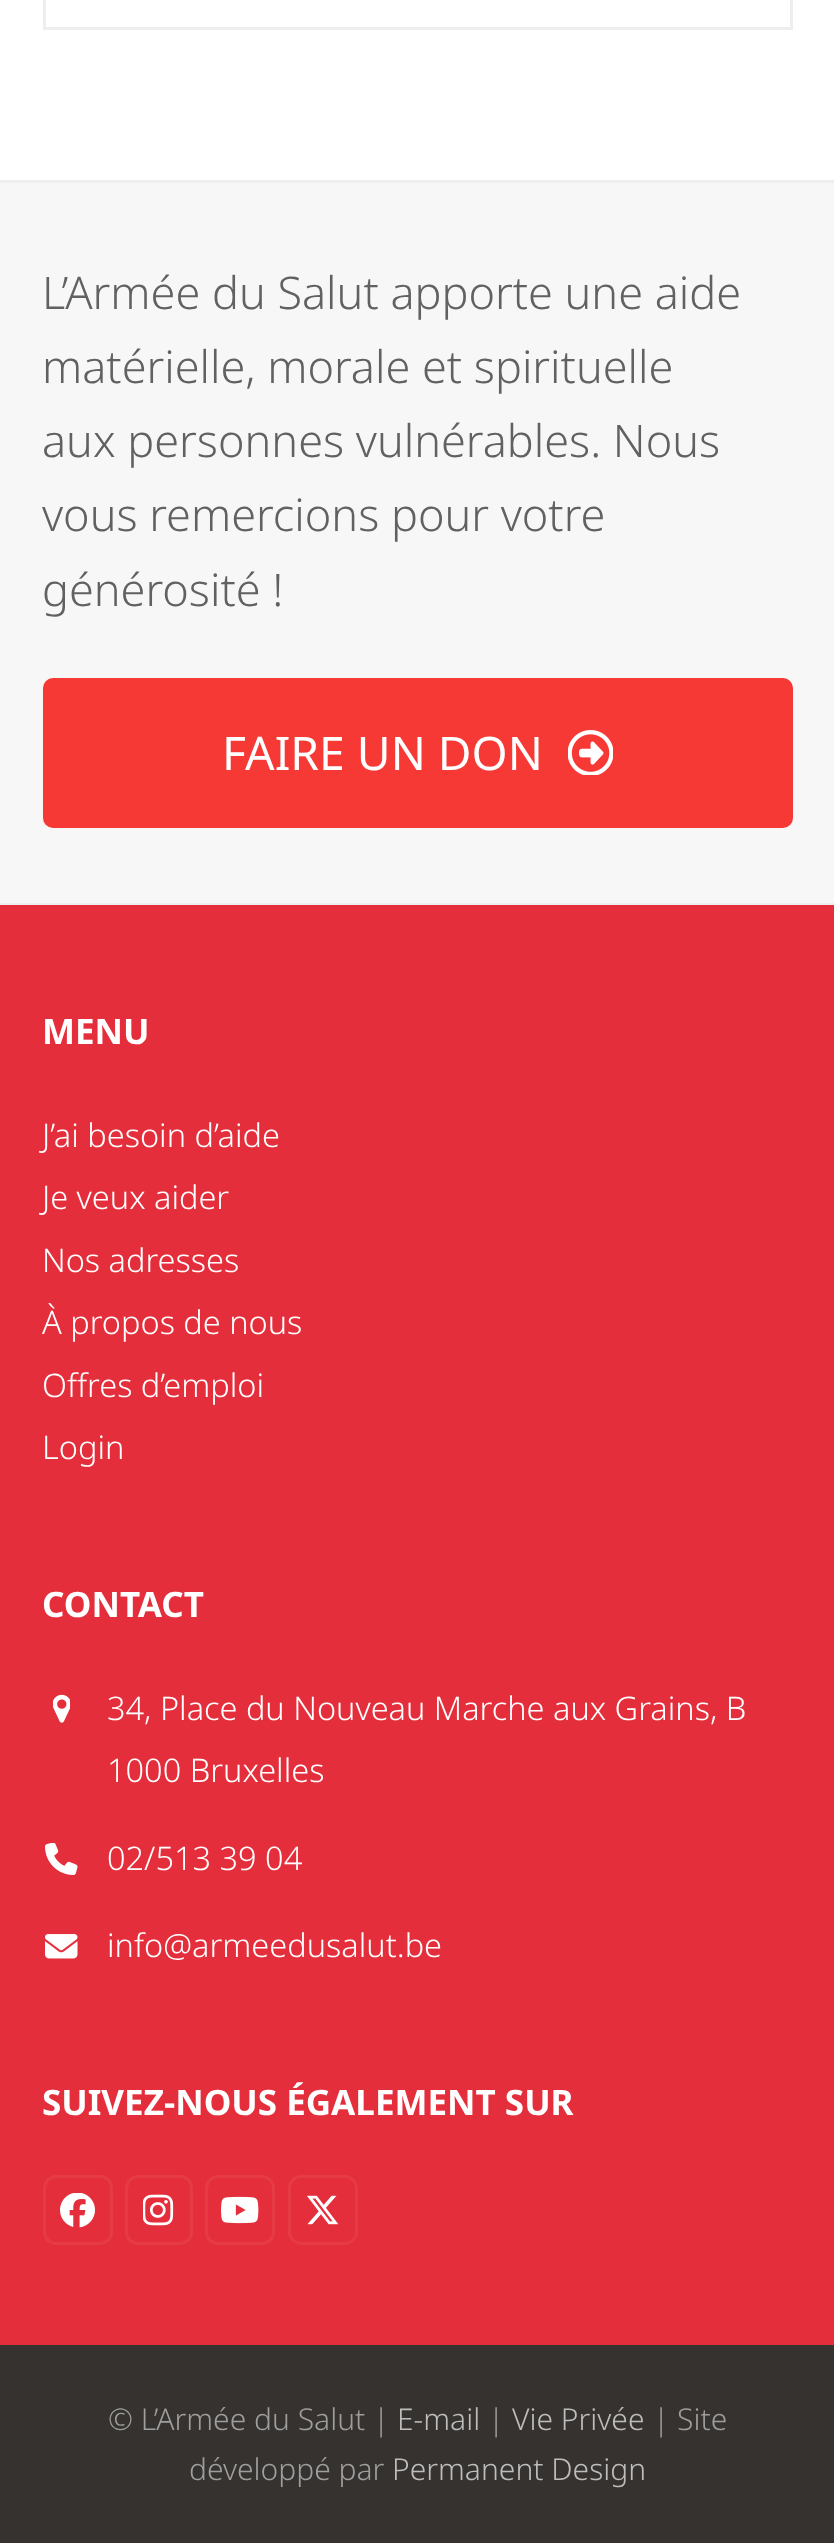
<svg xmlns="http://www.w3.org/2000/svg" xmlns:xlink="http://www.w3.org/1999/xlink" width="834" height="2543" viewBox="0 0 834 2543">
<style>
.cls-1{font:300 45px Noto Sans;fill:#616161}
.cls-2{font:46.25px Noto Sans;fill:#ffffff}
.cls-3{font:bold 35px Noto Sans;fill:#ffffff}
.cls-4{font:300 32.5px Noto Sans;fill:#ffffff}
.cls-5{font:300 30px Noto Sans;fill:#9e9e9e}
.cls-6{font:300 30px Noto Sans;fill:#bdbdbd}
</style>
<rect width="100%" height="100%" fill="#ffffff"/>
<rect fill="none" stroke="#eeeeee" stroke-width="3" x="44.5" y="-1.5" width="747" height="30"/>
<rect fill="#f7f7f7" x="0" y="183" width="834" height="720"/>
<rect fill="#eeeeee" x="0" y="180" width="834" height="3"/>
<rect fill="#eeeeee" x="0" y="903" width="834" height="2"/>
<rect fill="#f73936" x="43" y="678" width="750" height="150" rx="10"/>
<image xlink:href="image0.png" x="568" y="730" width="45" height="45"/>
<rect fill="#e42e3b" x="0" y="905" width="834" height="1440"/>
<image xlink:href="image1.png" x="53" y="1694" width="17" height="29"/>
<image xlink:href="image2.png" x="45" y="1843" width="33" height="32"/>
<image xlink:href="image3.png" x="45" y="1934" width="33" height="25"/>
<rect fill="none" stroke="#e63b47" stroke-width="3" x="44.5" y="2176.5" width="67" height="67" rx="11.5"/>
<image xlink:href="image4.png" x="60" y="2193" width="35" height="35"/>
<rect fill="none" stroke="#e63b47" stroke-width="3" x="126.5" y="2176.5" width="65" height="67" rx="11.5"/>
<image xlink:href="image5.png" x="143" y="2194" width="31" height="32"/>
<rect fill="none" stroke="#e63b47" stroke-width="3" x="206.5" y="2176.5" width="67" height="67" rx="11.5"/>
<image xlink:href="image6.png" x="221" y="2196" width="38" height="28"/>
<rect fill="none" stroke="#e63b47" stroke-width="3" x="289.5" y="2176.5" width="67" height="67" rx="11.5"/>
<image xlink:href="image7.png" x="307" y="2195" width="32" height="30"/>
<rect fill="#35322f" x="0" y="2345" width="834" height="198"/>
<text class="cls-1"><tspan x="42" y="309">L’Armée du Salut apporte une aide</tspan><tspan x="42" y="383">matérielle, morale et spirituelle</tspan><tspan x="42" y="457">aux personnes vulnérables. Nous</tspan><tspan x="42" y="531">vous remercions pour votre</tspan><tspan x="42" y="606">générosité !</tspan></text>
<text class="cls-2" x="222" y="770">FAIRE UN DON</text>
<text class="cls-3" x="42" y="1044">MENU</text>
<text class="cls-4"><tspan x="42" y="1147">J’ai besoin d’aide</tspan><tspan x="42" y="1209">Je veux aider</tspan><tspan x="42" y="1272">Nos adresses</tspan><tspan x="42" y="1334">À propos de nous</tspan><tspan x="42" y="1397">Offres d’emploi</tspan><tspan x="42" y="1459">Login</tspan></text>
<text class="cls-3" x="42" y="1617">CONTACT</text>
<text class="cls-4"><tspan x="107" y="1720">34, Place du Nouveau Marche aux Grains, B</tspan><tspan x="107" y="1782">1000 Bruxelles</tspan></text>
<text class="cls-4" x="107" y="1870">02/513 39 04</text>
<text class="cls-4" x="107" y="1957">info@armeedusalut.be</text>
<text class="cls-3" x="42" y="2115">SUIVEZ-NOUS ÉGALEMENT SUR</text>
<text class="cls-5" x="108" y="2430">© L’Armée du Salut |</text>
<text class="cls-6" x="397" y="2430">E-mail</text>
<text class="cls-5" x="488" y="2430">|</text>
<text class="cls-6" x="512" y="2430">Vie Privée</text>
<text class="cls-5" x="653" y="2430">| Site</text>
<text class="cls-5" x="189" y="2480">développé par</text>
<text class="cls-6" x="392" y="2480">Permanent Design</text>
</svg>
